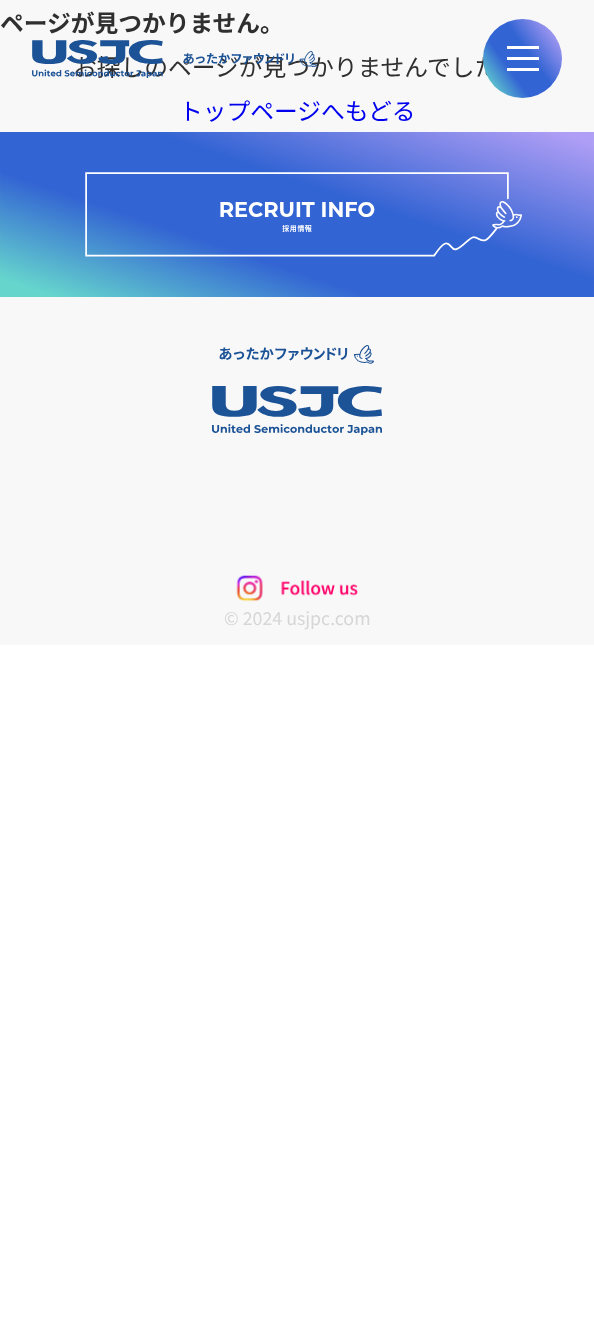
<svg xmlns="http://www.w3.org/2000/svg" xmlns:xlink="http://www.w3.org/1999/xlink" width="594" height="1322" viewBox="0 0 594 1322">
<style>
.cls-1{font:bold 23.75px Noto Sans JP;fill:#2f2f2f}
.cls-2{font:23.75px Noto Sans JP;fill:#2f2f2f}
.cls-3{font:23.75px Noto Sans JP;fill:#0000ee}
.cls-4{font:17.75px Noto Sans JP;fill:#d6d6d6}
</style>
<defs>
<linearGradient id="g1" gradientUnits="userSpaceOnUse" x1="562" y1="36" x2="488" y2="89"><stop offset="0" stop-color="#af9ef5"/><stop offset="0.41" stop-color="#3364d3"/><stop offset="0.68" stop-color="#3364d3"/><stop offset="1" stop-color="#66d6cd"/></linearGradient>
</defs>
<rect width="100%" height="100%" fill="#ffffff"/>
<rect fill="#f8f8f8" x="0" y="0" width="594" height="645"/>
<image xlink:href="image1.png" x="0" y="132" width="594" height="165"/>
<image xlink:href="image2.png" x="212" y="345" width="170" height="90"/>
<image xlink:href="image3.png" x="236" y="575" width="122" height="27"/>
<text class="cls-1" x="0" y="32">ページが見つかりません。</text>
<text class="cls-2" x="73" y="76">お探しのページが見つかりませんでした</text>
<text class="cls-3" x="179" y="120">トップページへもどる</text>
<image xlink:href="image0.png" x="32" y="40" width="285" height="38"/>
<circle fill="url(#g1)" cx="522.5" cy="58.5" r="39.5"/>
<rect fill="#ffffff" x="507" y="46" width="32" height="3"/>
<rect fill="#ffffff" x="507" y="57" width="32" height="3"/>
<rect fill="#ffffff" x="507" y="68" width="32" height="3"/>
<text class="cls-4" x="224" y="625">© 2024 usjpc.com</text>
</svg>
